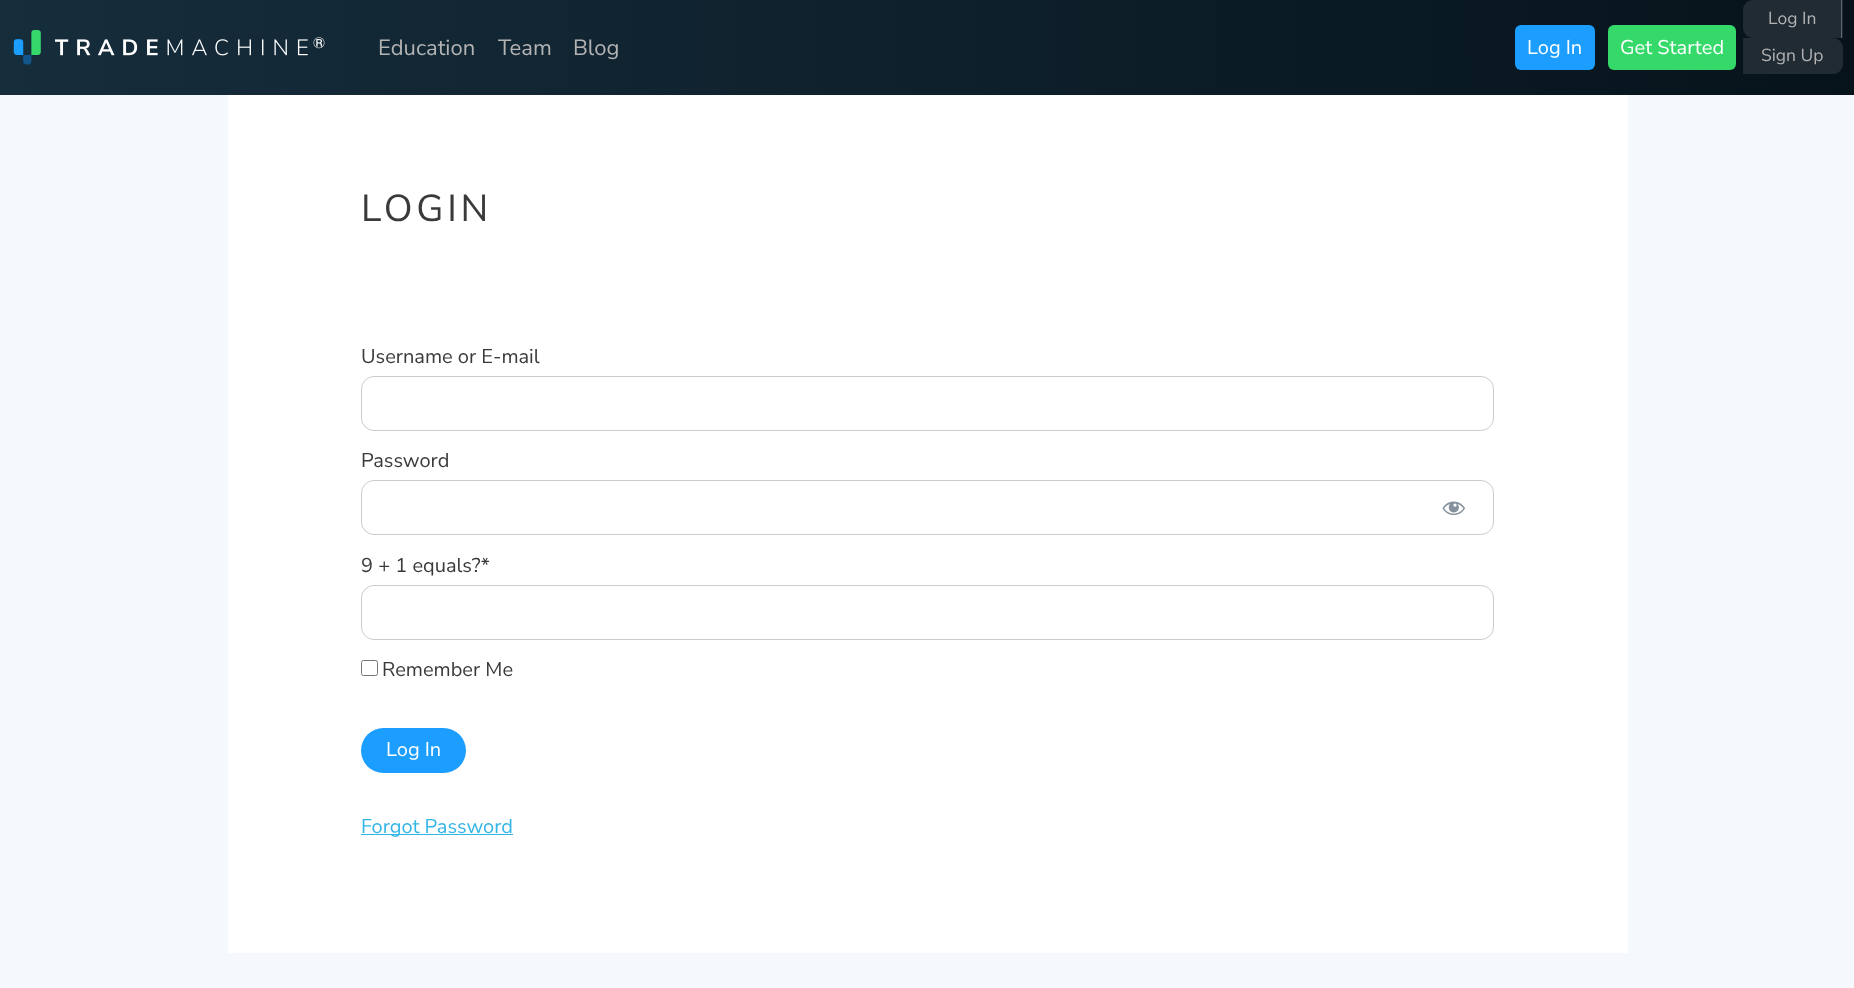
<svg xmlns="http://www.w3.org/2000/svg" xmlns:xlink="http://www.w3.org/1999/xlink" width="1854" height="988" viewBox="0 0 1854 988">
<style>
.cls-1{font:200 22px Nunito Sans;fill:#b3b3b3}
.cls-2{font:200 20px Nunito Sans;fill:#ffffff}
.cls-3{font:200 17.5px Nunito Sans;fill:#b3b3b3}
.cls-4{font:200 37.5px Nunito Sans;letter-spacing:3.75px;fill:#3a3a3a}
.cls-5{font:200 20px Nunito Sans;fill:#3a3a3a}
.cls-6{font:200 20px Nunito Sans;fill:#33b5e5}
</style>
<defs>
<linearGradient id="g1" gradientUnits="userSpaceOnUse" x1="0" y1="48" x2="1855" y2="47"><stop offset="0" stop-color="#162d3c"/><stop offset="1" stop-color="#06131b"/></linearGradient>
</defs>
<rect width="100%" height="100%" fill="#f5f8fc"/>
<rect fill="url(#g1)" x="0" y="0" width="1854" height="95"/>
<image xlink:href="image0.png" x="13" y="30" width="312" height="35"/>
<rect fill="#1b9eff" x="1515" y="25" width="80" height="45" rx="6"/>
<rect fill="#35d96a" x="1608" y="25" width="128" height="45" rx="6"/>
<path fill="#202b34" d="M1753 0H1843V38H1753C1747.5 38 1743 33.5 1743 28V10C1743 4.5 1747.5 0 1753 0Z"/>
<rect fill="#5a646a" x="1841" y="0" width="1" height="38"/>
<path fill="#202b34" d="M1743 38H1833C1838.5 38 1843 42.5 1843 48V64C1843 69.5 1838.5 74 1833 74H1743Z"/>
<rect fill="#ffffff" x="228" y="95" width="1400" height="858"/>
<rect fill="none" stroke="#cccccc" x="361.5" y="376.5" width="1132" height="54" rx="12.5"/>
<rect fill="none" stroke="#cccccc" x="361.5" y="480.5" width="1132" height="54" rx="12.5"/>
<image xlink:href="image1.png" x="1442" y="501" width="23" height="15"/>
<rect fill="none" stroke="#cccccc" x="361.5" y="585.5" width="1132" height="54" rx="12.5"/>
<rect fill="none" stroke="#767676" x="361.5" y="660.5" width="16" height="15" rx="2"/>
<rect fill="#1b9eff" x="361" y="728" width="105" height="45" rx="22.5"/>
<rect fill="#33b5e5" x="361" y="834" width="152" height="1"/>
<text class="cls-1" x="378" y="55">Education</text>
<text class="cls-1" x="498" y="55">Team</text>
<text class="cls-1" x="573" y="55">Blog</text>
<text class="cls-2" x="1527" y="54">Log In</text>
<text class="cls-2" x="1620" y="54">Get Started</text>
<text class="cls-3" x="1768" y="24">Log In</text>
<text class="cls-3" x="1761" y="61">Sign Up</text>
<text class="cls-4" x="361" y="221">LOGIN</text>
<text class="cls-5" x="361" y="363">Username or E-mail</text>
<text class="cls-5" x="361" y="467">Password</text>
<text class="cls-5" x="361" y="572">9 + 1 equals?*</text>
<text class="cls-5" x="382" y="676">Remember Me</text>
<text class="cls-2" x="386" y="756">Log In</text>
<text class="cls-6" x="361" y="833">Forgot Password</text>
</svg>
